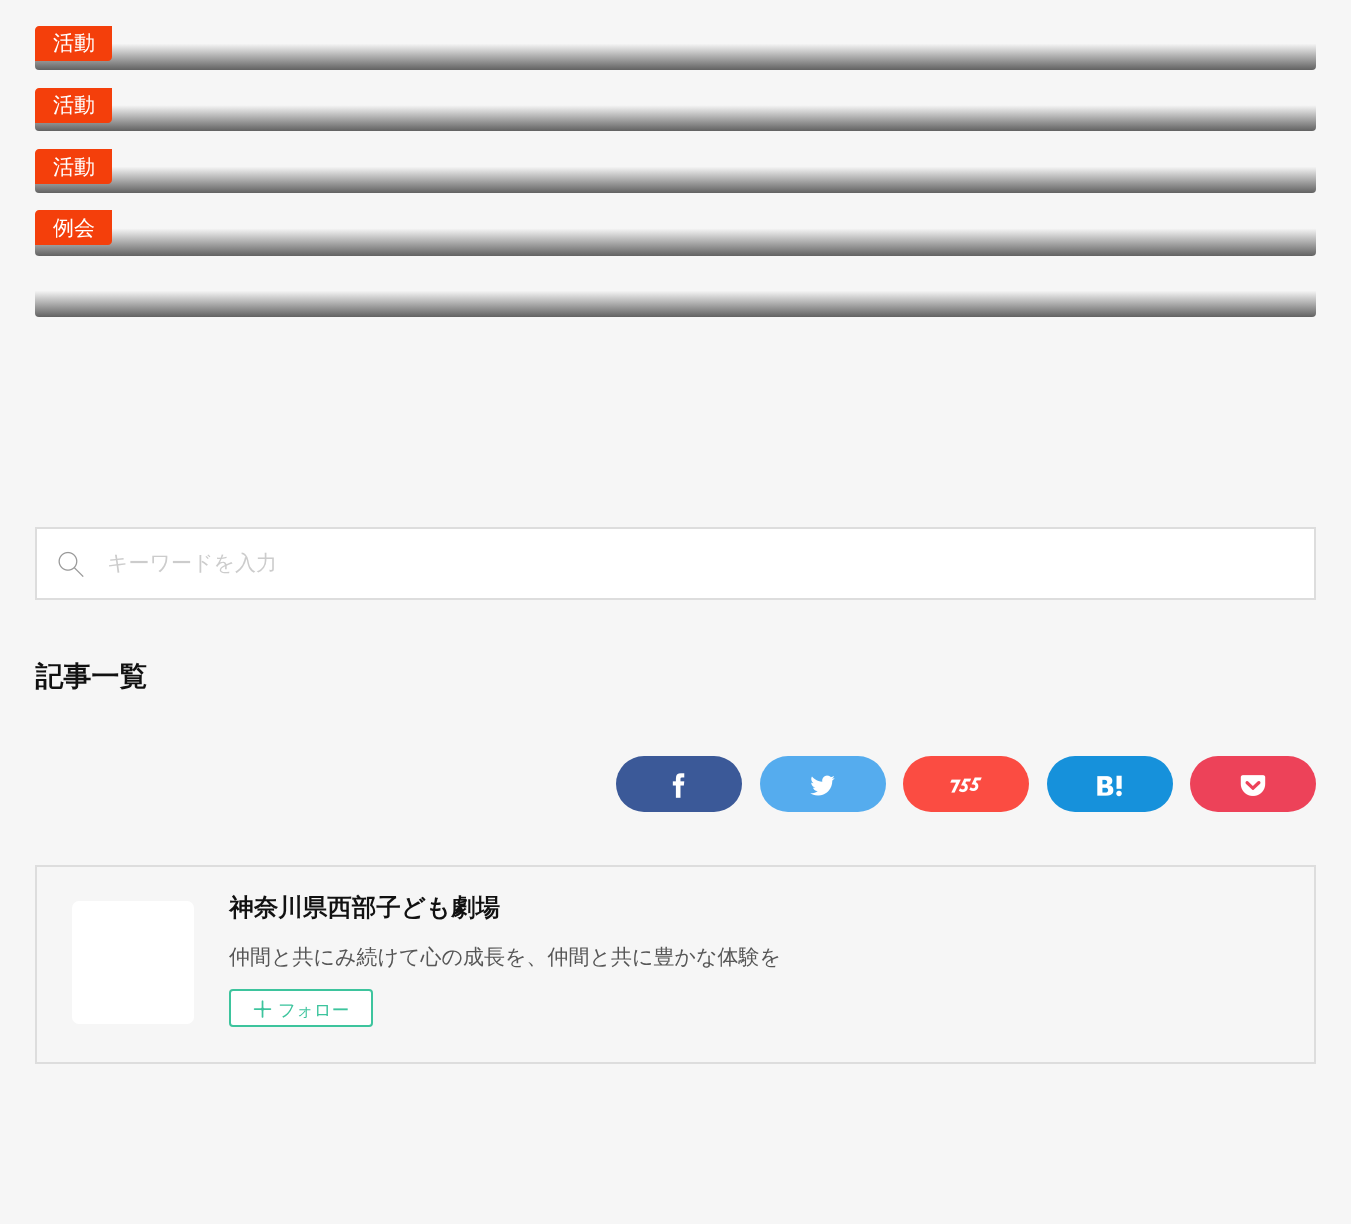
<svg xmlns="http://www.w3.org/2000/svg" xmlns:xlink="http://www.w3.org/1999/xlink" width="1351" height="1224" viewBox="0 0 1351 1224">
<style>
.cls-1{font:500 21px WenQuanYi Zen Hei;fill:#ffffff}
.cls-2{font:500 21px WenQuanYi Zen Hei;fill:#cccccc}
.cls-3{font:bold 28px WenQuanYi Zen Hei;fill:#111111}
.cls-4{font:bold 24.5px WenQuanYi Zen Hei;fill:#111111}
.cls-5{font:500 21px WenQuanYi Zen Hei;fill:#565656}
.cls-6{font:500 17.5px WenQuanYi Zen Hei;fill:#3dc49d}
</style>
<defs>
<linearGradient id="g1" gradientUnits="userSpaceOnUse" x1="676" y1="70" x2="676" y2="26"><stop offset="0" stop-color="#626262"/><stop offset="0.6" stop-color="#f6f6f6"/></linearGradient>
<linearGradient id="g2" gradientUnits="userSpaceOnUse" x1="676" y1="131" x2="676" y2="88"><stop offset="0" stop-color="#626262"/><stop offset="0.6" stop-color="#f6f6f6"/></linearGradient>
<linearGradient id="g3" gradientUnits="userSpaceOnUse" x1="676" y1="193" x2="676" y2="149"><stop offset="0" stop-color="#626262"/><stop offset="0.6" stop-color="#f6f6f6"/></linearGradient>
<linearGradient id="g4" gradientUnits="userSpaceOnUse" x1="676" y1="256" x2="676" y2="210"><stop offset="0" stop-color="#626262"/><stop offset="0.6" stop-color="#f6f6f6"/></linearGradient>
<linearGradient id="g5" gradientUnits="userSpaceOnUse" x1="676" y1="317" x2="676" y2="273"><stop offset="0" stop-color="#626262"/><stop offset="0.6" stop-color="#f6f6f6"/></linearGradient>
</defs>
<rect width="100%" height="100%" fill="#f6f6f6"/>
<rect fill="url(#g1)" x="35" y="26" width="1281" height="44" rx="4"/>
<path fill="#f43f0b" d="M39 26H112V57C112 59 110 61 108 61H35V30C35 28 37 26 39 26Z"/>
<rect fill="url(#g2)" x="35" y="88" width="1281" height="43" rx="4"/>
<path fill="#f43f0b" d="M39 88H112V119C112 121 110 123 108 123H35V92C35 90 37 88 39 88Z"/>
<rect fill="url(#g3)" x="35" y="149" width="1281" height="44" rx="4"/>
<path fill="#f43f0b" d="M39 149H112V180C112 182 110 184 108 184H35V153C35 151 37 149 39 149Z"/>
<rect fill="url(#g4)" x="35" y="210" width="1281" height="46" rx="4"/>
<path fill="#f43f0b" d="M39 210H112V241C112 243 110 245 108 245H35V214C35 212 37 210 39 210Z"/>
<rect fill="url(#g5)" x="35" y="273" width="1281" height="44" rx="4"/>
<rect fill="#ffffff" stroke="#dddddd" stroke-width="2" x="36" y="528" width="1279" height="71"/>
<image xlink:href="image0.png" x="58" y="551" width="26" height="26"/>
<rect fill="#3b5998" x="616" y="756" width="126" height="56" rx="28"/>
<image xlink:href="image1.png" x="672" y="773" width="13" height="25"/>
<rect fill="#55acee" x="760" y="756" width="126" height="56" rx="28"/>
<image xlink:href="image2.png" x="810" y="775" width="25" height="21"/>
<rect fill="#fb4c42" x="903" y="756" width="126" height="56" rx="28"/>
<image xlink:href="image3.png" x="950" y="777" width="32" height="16"/>
<rect fill="#1691db" x="1047" y="756" width="126" height="56" rx="28"/>
<image xlink:href="image4.png" x="1097" y="775" width="25" height="22"/>
<rect fill="#ed4259" x="1190" y="756" width="126" height="56" rx="28"/>
<image xlink:href="image5.png" x="1240" y="775" width="26" height="21"/>
<rect fill="none" stroke="#dddddd" stroke-width="2" x="36" y="866" width="1279" height="197"/>
<rect fill="#ffffff" x="72" y="901" width="122" height="123" rx="7"/>
<rect fill="#ffffff" stroke="#3dc49d" stroke-width="2" x="230" y="990" width="142" height="36" rx="3"/>
<image xlink:href="image6.png" x="253" y="1000" width="19" height="18"/>
<text class="cls-1" x="53" y="50">活動</text>
<text class="cls-1" x="53" y="112">活動</text>
<text class="cls-1" x="53" y="174">活動</text>
<text class="cls-1" x="53" y="235">例会</text>
<text class="cls-2" x="107" y="570">キーワードを入力</text>
<text class="cls-3" x="35" y="686">記事一覧</text>
<text class="cls-4" x="229" y="916">神奈川県西部子ども劇場</text>
<text class="cls-5" x="229" y="964">仲間と共にみ続けて心の成長を、仲間と共に豊かな体験を</text>
<text class="cls-6" x="278" y="1016">フォロー</text>
</svg>
